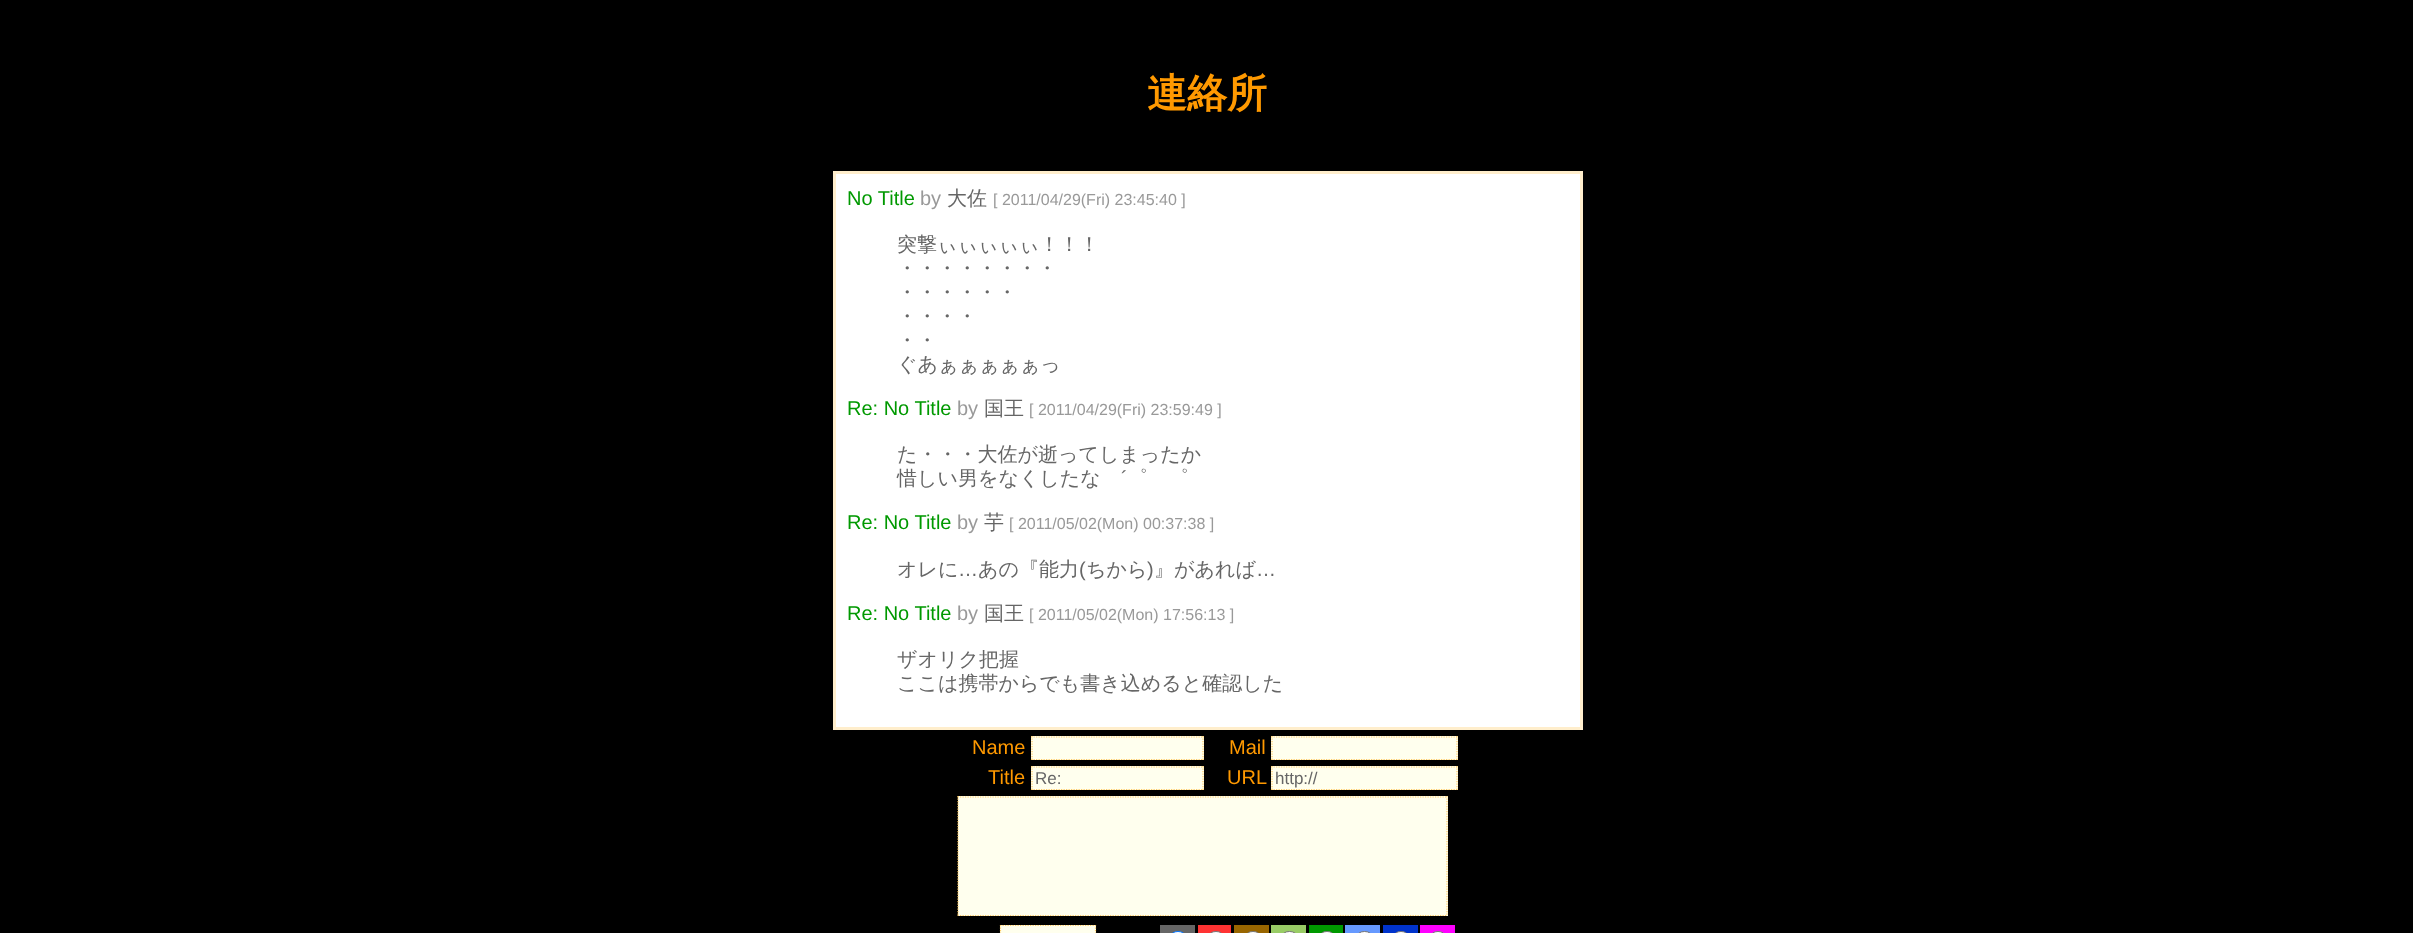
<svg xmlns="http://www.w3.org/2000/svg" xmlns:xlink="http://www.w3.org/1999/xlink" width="2413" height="933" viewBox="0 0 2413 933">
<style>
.cls-1{font:bold 40px WenQuanYi Zen Hei;fill:#ff9900}
.cls-2{font:20px Liberation Sans;fill:#009900}
.cls-3{font:20px Liberation Sans;fill:#999999}
.cls-4{font:500 20px WenQuanYi Zen Hei;fill:#666666}
.cls-5{font:16px Liberation Sans;fill:#999999}
.cls-6{font:20px Liberation Sans;fill:#666666}
.cls-7{font:20px Liberation Sans;fill:#ff9900}
.cls-8{font:17px Liberation Sans;fill:#666666}
</style>
<rect width="100%" height="100%" fill="#000000"/>
<rect fill="#ffffff" stroke="#ffeecc" stroke-width="3" x="834.5" y="172.5" width="747" height="556"/>
<rect fill="#ffffee" x="1031" y="736" width="173" height="24"/>
<path fill="none" stroke="#ffcc66" stroke-width="1.2" stroke-dasharray="1.25 1.25" d="M1031 737H1204"/>
<path fill="none" stroke="#ffcc66" stroke-width="1.2" stroke-dasharray="1.25 1.25" d="M1203 736V760"/>
<path fill="none" stroke="#ffcc66" stroke-width="1.2" stroke-dasharray="1.25 1.25" d="M1031 759.5H1204"/>
<path fill="none" stroke="#ffcc66" stroke-width="1.2" stroke-dasharray="1.25 1.25" d="M1032 736V760"/>
<rect fill="#ffffee" x="1271" y="736" width="187" height="24"/>
<path fill="none" stroke="#ffcc66" stroke-width="1.2" stroke-dasharray="1.25 1.25" d="M1271 737H1457.5"/>
<path fill="none" stroke="#ffcc66" stroke-width="1.2" stroke-dasharray="1.25 1.25" d="M1457 736V760"/>
<path fill="none" stroke="#ffcc66" stroke-width="1.2" stroke-dasharray="1.25 1.25" d="M1271 759.5H1457.5"/>
<path fill="none" stroke="#ffcc66" stroke-width="1.2" stroke-dasharray="1.25 1.25" d="M1272 736V760"/>
<rect fill="#ffffee" x="1031" y="766" width="173" height="24"/>
<path fill="none" stroke="#ffcc66" stroke-width="1.2" stroke-dasharray="1.25 1.25" d="M1031 767H1204"/>
<path fill="none" stroke="#ffcc66" stroke-width="1.2" stroke-dasharray="1.25 1.25" d="M1203 766V790"/>
<path fill="none" stroke="#ffcc66" stroke-width="1.2" stroke-dasharray="1.25 1.25" d="M1031 789.5H1204"/>
<path fill="none" stroke="#ffcc66" stroke-width="1.2" stroke-dasharray="1.25 1.25" d="M1032 766V790"/>
<rect fill="#ffffee" x="1271" y="766" width="187" height="24"/>
<path fill="none" stroke="#ffcc66" stroke-width="1.2" stroke-dasharray="1.25 1.25" d="M1271 767H1457.5"/>
<path fill="none" stroke="#ffcc66" stroke-width="1.2" stroke-dasharray="1.25 1.25" d="M1457 766V790"/>
<path fill="none" stroke="#ffcc66" stroke-width="1.2" stroke-dasharray="1.25 1.25" d="M1271 789.5H1457.5"/>
<path fill="none" stroke="#ffcc66" stroke-width="1.2" stroke-dasharray="1.25 1.25" d="M1272 766V790"/>
<rect fill="#ffffee" x="958" y="796" width="490" height="120"/>
<path fill="none" stroke="#ffcc66" stroke-width="1.2" stroke-dasharray="1.25 1.25" d="M957.5 797H1447.5"/>
<path fill="none" stroke="#ffcc66" stroke-width="1.2" stroke-dasharray="1.25 1.25" d="M1447 796V916"/>
<path fill="none" stroke="#ffcc66" stroke-width="1.2" stroke-dasharray="1.25 1.25" d="M957.5 915.5H1447.5"/>
<path fill="none" stroke="#ffcc66" stroke-width="1.2" stroke-dasharray="1.25 1.25" d="M958 796V916"/>
<rect fill="#ffffee" x="1000" y="925" width="96" height="8"/>
<path fill="none" stroke="#ffcc66" stroke-width="1.2" stroke-dasharray="1.25 1.25" d="M1000 925.5H1096"/>
<path fill="none" stroke="#ffcc66" stroke-width="1.2" stroke-dasharray="1.25 1.25" d="M1095.5 925V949"/>
<path fill="none" stroke="#ffcc66" stroke-width="1.2" stroke-dasharray="1.25 1.25" d="M1000.5 925V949"/>
<rect fill="#666666" x="1160" y="925" width="35" height="8"/>
<rect fill="#ffffff" stroke="#0075ff" x="1170.5" y="931.5" width="15" height="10" rx="7.5"/>
<rect fill="#ff3333" x="1198" y="925" width="33" height="8"/>
<rect fill="#ffffff" stroke="#767676" x="1208.5" y="931.5" width="15" height="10" rx="7.5"/>
<rect fill="#996600" x="1234" y="925" width="35" height="8"/>
<rect fill="#ffffff" stroke="#767676" x="1245.5" y="931.5" width="15" height="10" rx="7.5"/>
<rect fill="#99cc66" x="1271" y="925" width="35" height="8"/>
<rect fill="#ffffff" stroke="#767676" x="1281.5" y="931.5" width="16" height="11" rx="8"/>
<rect fill="#009900" x="1309" y="925" width="34" height="8"/>
<rect fill="#ffffff" stroke="#767676" x="1319.5" y="931.5" width="15" height="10" rx="7.5"/>
<rect fill="#6699ff" x="1345" y="925" width="35" height="8"/>
<rect fill="#ffffff" stroke="#767676" x="1356.5" y="931.5" width="16" height="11" rx="8"/>
<rect fill="#0033cc" x="1383" y="925" width="35" height="8"/>
<rect fill="#ffffff" stroke="#767676" x="1393.5" y="931.5" width="15" height="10" rx="7.5"/>
<rect fill="#ff00ff" x="1420" y="925" width="35" height="8"/>
<rect fill="#ffffff" stroke="#767676" x="1430.5" y="931.5" width="15" height="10" rx="7.5"/>
<text class="cls-1" x="1147" y="107">連絡所</text>
<text class="cls-2" x="847" y="205">No Title</text>
<text class="cls-3" x="920" y="205">by</text>
<text class="cls-4" x="947" y="205">大佐</text>
<text class="cls-5" x="993" y="205">[ 2011/04/29(Fri) 23:45:40 ]</text>
<text class="cls-4"><tspan x="897" y="251">突撃ぃぃぃぃぃ！！！</tspan><tspan x="897" y="275">・・・・・・・・</tspan><tspan x="897" y="299">・・・・・・</tspan><tspan x="897" y="323">・・・・</tspan><tspan x="897" y="347">・・</tspan><tspan x="897" y="371">ぐあぁぁぁぁぁっ</tspan></text>
<text class="cls-2" x="847" y="415">Re: No Title</text>
<text class="cls-3" x="957" y="415">by</text>
<text class="cls-4" x="984" y="415">国王</text>
<text class="cls-5" x="1029" y="415">[ 2011/04/29(Fri) 23:59:49 ]</text>
<text class="cls-4"><tspan x="897" y="461">た・・・大佐が逝ってしまったか</tspan><tspan x="897" y="485">惜しい男をなくしたな</tspan></text>
<text class="cls-6" x="1121" y="485">´</text>
<text class="cls-4" x="1127" y="485">゜ゝ゜</text>
<text class="cls-2" x="847" y="529">Re: No Title</text>
<text class="cls-3" x="957" y="529">by</text>
<text class="cls-4" x="984" y="529">芋</text>
<text class="cls-5" x="1009" y="529">[ 2011/05/02(Mon) 00:37:38 ]</text>
<text class="cls-4" x="897" y="576">オレに</text>
<text class="cls-6" x="958" y="576">…</text>
<text class="cls-4" x="978" y="576">あの『能力</text>
<text class="cls-6" x="1079" y="576">(</text>
<text class="cls-4" x="1086" y="576">ちから</text>
<text class="cls-6" x="1147" y="576">)</text>
<text class="cls-4" x="1154" y="576">』があれば</text>
<text class="cls-6" x="1256" y="576">…</text>
<text class="cls-2" x="847" y="620">Re: No Title</text>
<text class="cls-3" x="957" y="620">by</text>
<text class="cls-4" x="984" y="620">国王</text>
<text class="cls-5" x="1029" y="620">[ 2011/05/02(Mon) 17:56:13 ]</text>
<text class="cls-4"><tspan x="897" y="666">ザオリク把握</tspan><tspan x="897" y="690">ここは携帯からでも書き込めると確認した</tspan></text>
<text class="cls-7" x="972" y="754">Name</text>
<text class="cls-7" x="1229" y="754">Mail</text>
<text class="cls-7" x="988" y="784">Title</text>
<text class="cls-8" x="1035" y="784">Re:</text>
<text class="cls-7" x="1227" y="784">URL</text>
<text class="cls-8" x="1275" y="784">http://</text>
</svg>
